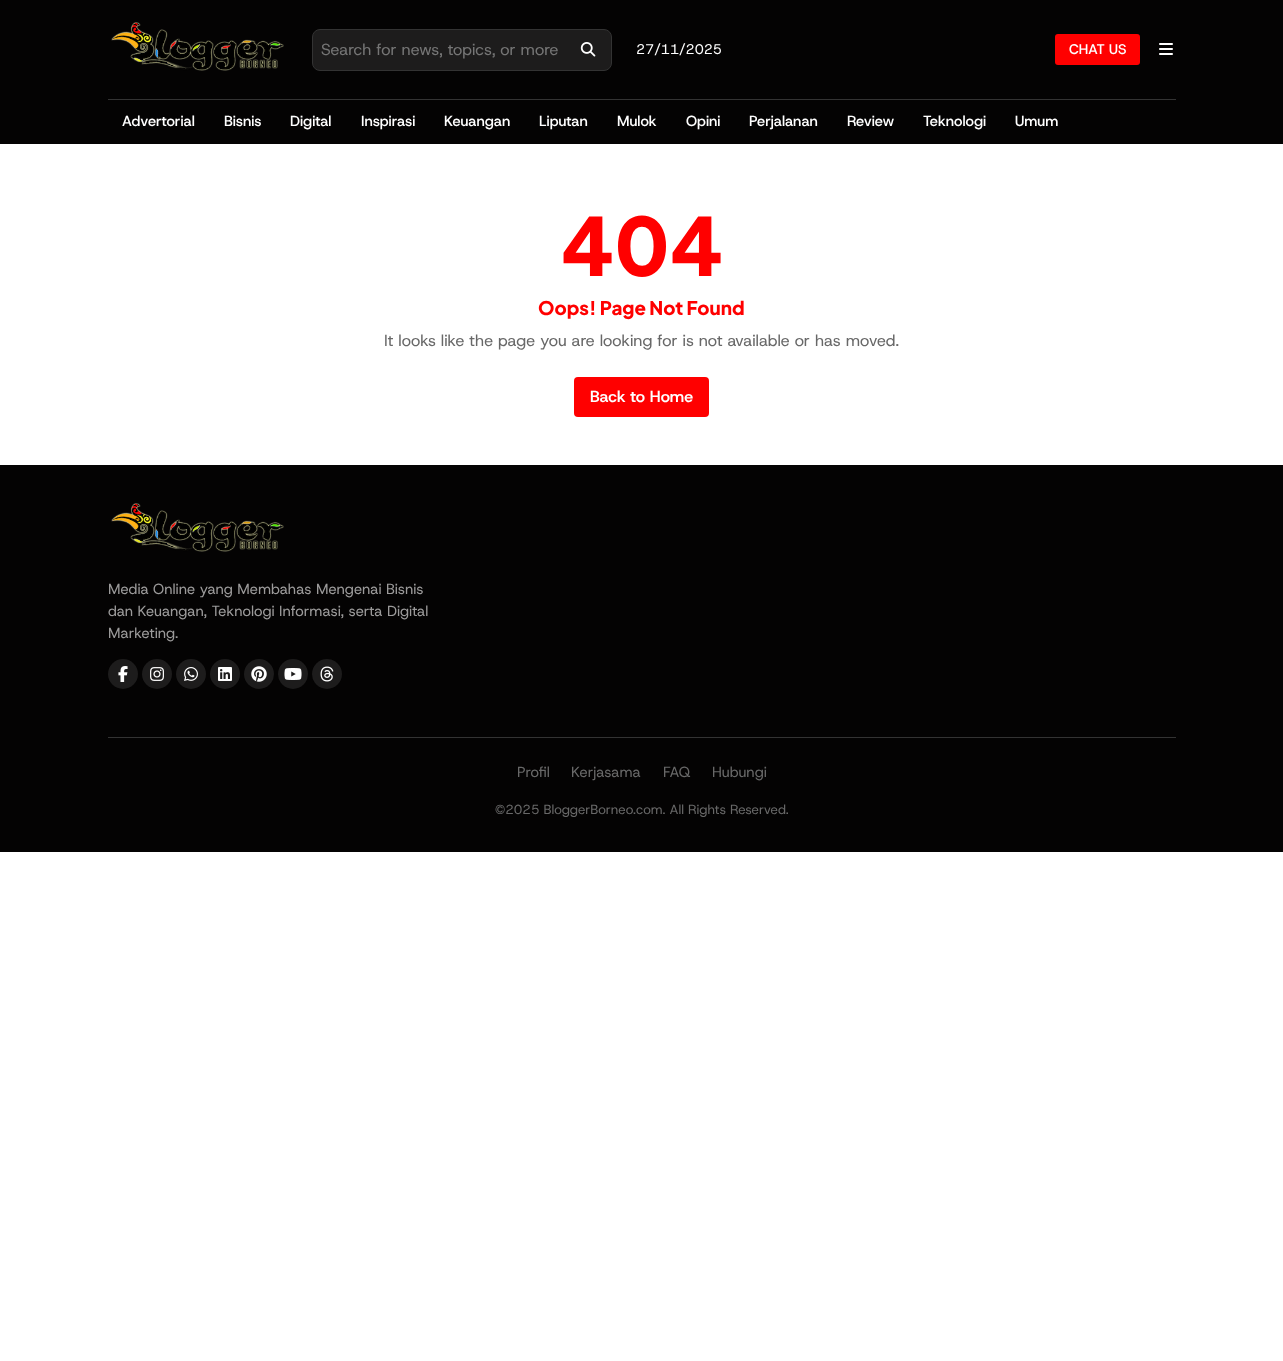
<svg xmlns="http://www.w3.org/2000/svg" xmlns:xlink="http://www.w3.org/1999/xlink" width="1283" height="1361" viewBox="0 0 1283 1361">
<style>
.cls-1{font:16px Host Grotesk;fill:#757575}
.cls-2{font:14px Host Grotesk;fill:#ffffff}
.cls-3{font:500 14px Host Grotesk;fill:#ffffff}
.cls-4{font:500 14.6px Host Grotesk;fill:#ffffff}
.cls-5{font:800 80px Plus Jakarta Sans;fill:#ff0000}
.cls-6{font:800 18.75px Plus Jakarta Sans;fill:#ff0000}
.cls-7{font:16px Host Grotesk;fill:#686868}
.cls-8{font:600 16px Host Grotesk;fill:#ffffff}
.cls-9{font:14.6px Host Grotesk;fill:#9b9a9a}
.cls-10{font:14.6px Host Grotesk;fill:#686868}
.cls-11{font:13.2px Host Grotesk;fill:#686868}
</style>
<rect width="100%" height="100%" fill="#ffffff"/>
<rect fill="#040303" x="0" y="0" width="1283" height="144"/>
<rect fill="#333333" x="108" y="99" width="1068" height="1"/>
<image xlink:href="image0.png" x="111" y="22" width="173" height="49"/>
<rect fill="#1d1c1c" stroke="#333333" x="312.5" y="29.5" width="299" height="41" rx="7.5"/>
<image xlink:href="image1.png" x="580" y="42" width="16" height="15"/>
<rect fill="#ff0000" x="1055" y="34" width="85" height="31" rx="3"/>
<image xlink:href="image2.png" x="1159" y="43" width="14" height="12"/>
<rect fill="#ff0000" x="574" y="377" width="135" height="40" rx="4"/>
<rect fill="#040303" x="0" y="465" width="1283" height="387"/>
<image xlink:href="image3.png" x="111" y="503" width="173" height="49"/>
<circle fill="#1d1c1c" cx="123" cy="674" r="15"/>
<image xlink:href="image4.png" x="118" y="666" width="10" height="16"/>
<circle fill="#1d1c1c" cx="157" cy="674" r="15"/>
<image xlink:href="image5.png" x="150" y="667" width="14" height="14"/>
<circle fill="#1d1c1c" cx="191" cy="674" r="15"/>
<image xlink:href="image6.png" x="184" y="667" width="14" height="14"/>
<circle fill="#1d1c1c" cx="225" cy="674" r="15"/>
<image xlink:href="image7.png" x="218" y="667" width="14" height="14"/>
<circle fill="#1d1c1c" cx="259" cy="674" r="15"/>
<image xlink:href="image8.png" x="251" y="666" width="16" height="16"/>
<circle fill="#1d1c1c" cx="293" cy="674" r="15"/>
<image xlink:href="image9.png" x="284" y="668" width="18" height="12"/>
<circle fill="#1d1c1c" cx="327" cy="674" r="15"/>
<image xlink:href="image10.png" x="320" y="666" width="14" height="16"/>
<rect fill="#333333" x="108" y="737" width="1068" height="1"/>
<text class="cls-1" x="321" y="55">Search for news, topics, or more</text>
<text class="cls-2" x="636" y="54">27/11/2025</text>
<text class="cls-3" x="1069" y="54">CHAT US</text>
<text class="cls-4" x="122" y="126">Advertorial</text>
<text class="cls-4" x="224" y="126">Bisnis</text>
<text class="cls-4" x="290" y="126">Digital</text>
<text class="cls-4" x="361" y="126">Inspirasi</text>
<text class="cls-4" x="444" y="126">Keuangan</text>
<text class="cls-4" x="539" y="126">Liputan</text>
<text class="cls-4" x="617" y="126">Mulok</text>
<text class="cls-4" x="686" y="126">Opini</text>
<text class="cls-4" x="749" y="126">Perjalanan</text>
<text class="cls-4" x="847" y="126">Review</text>
<text class="cls-4" x="923" y="126">Teknologi</text>
<text class="cls-4" x="1015" y="126">Umum</text>
<text class="cls-5" x="561" y="276">404</text>
<text class="cls-6" x="538" y="315">Oops! Page Not Found</text>
<text class="cls-7" x="384" y="346">It looks like the page you are looking for is not available or has moved.</text>
<text class="cls-8" x="590" y="402">Back to Home</text>
<text class="cls-9"><tspan x="108" y="594">Media Online yang Membahas Mengenai Bisnis</tspan><tspan x="108" y="616">dan Keuangan, Teknologi Informasi, serta Digital</tspan><tspan x="108" y="638">Marketing.</tspan></text>
<text class="cls-10" x="517" y="777">Profil</text>
<text class="cls-10" x="571" y="777">Kerjasama</text>
<text class="cls-10" x="663" y="777">FAQ</text>
<text class="cls-10" x="712" y="777">Hubungi</text>
<text class="cls-11" x="495" y="814">©2025 BloggerBorneo.com. All Rights Reserved.</text>
</svg>
